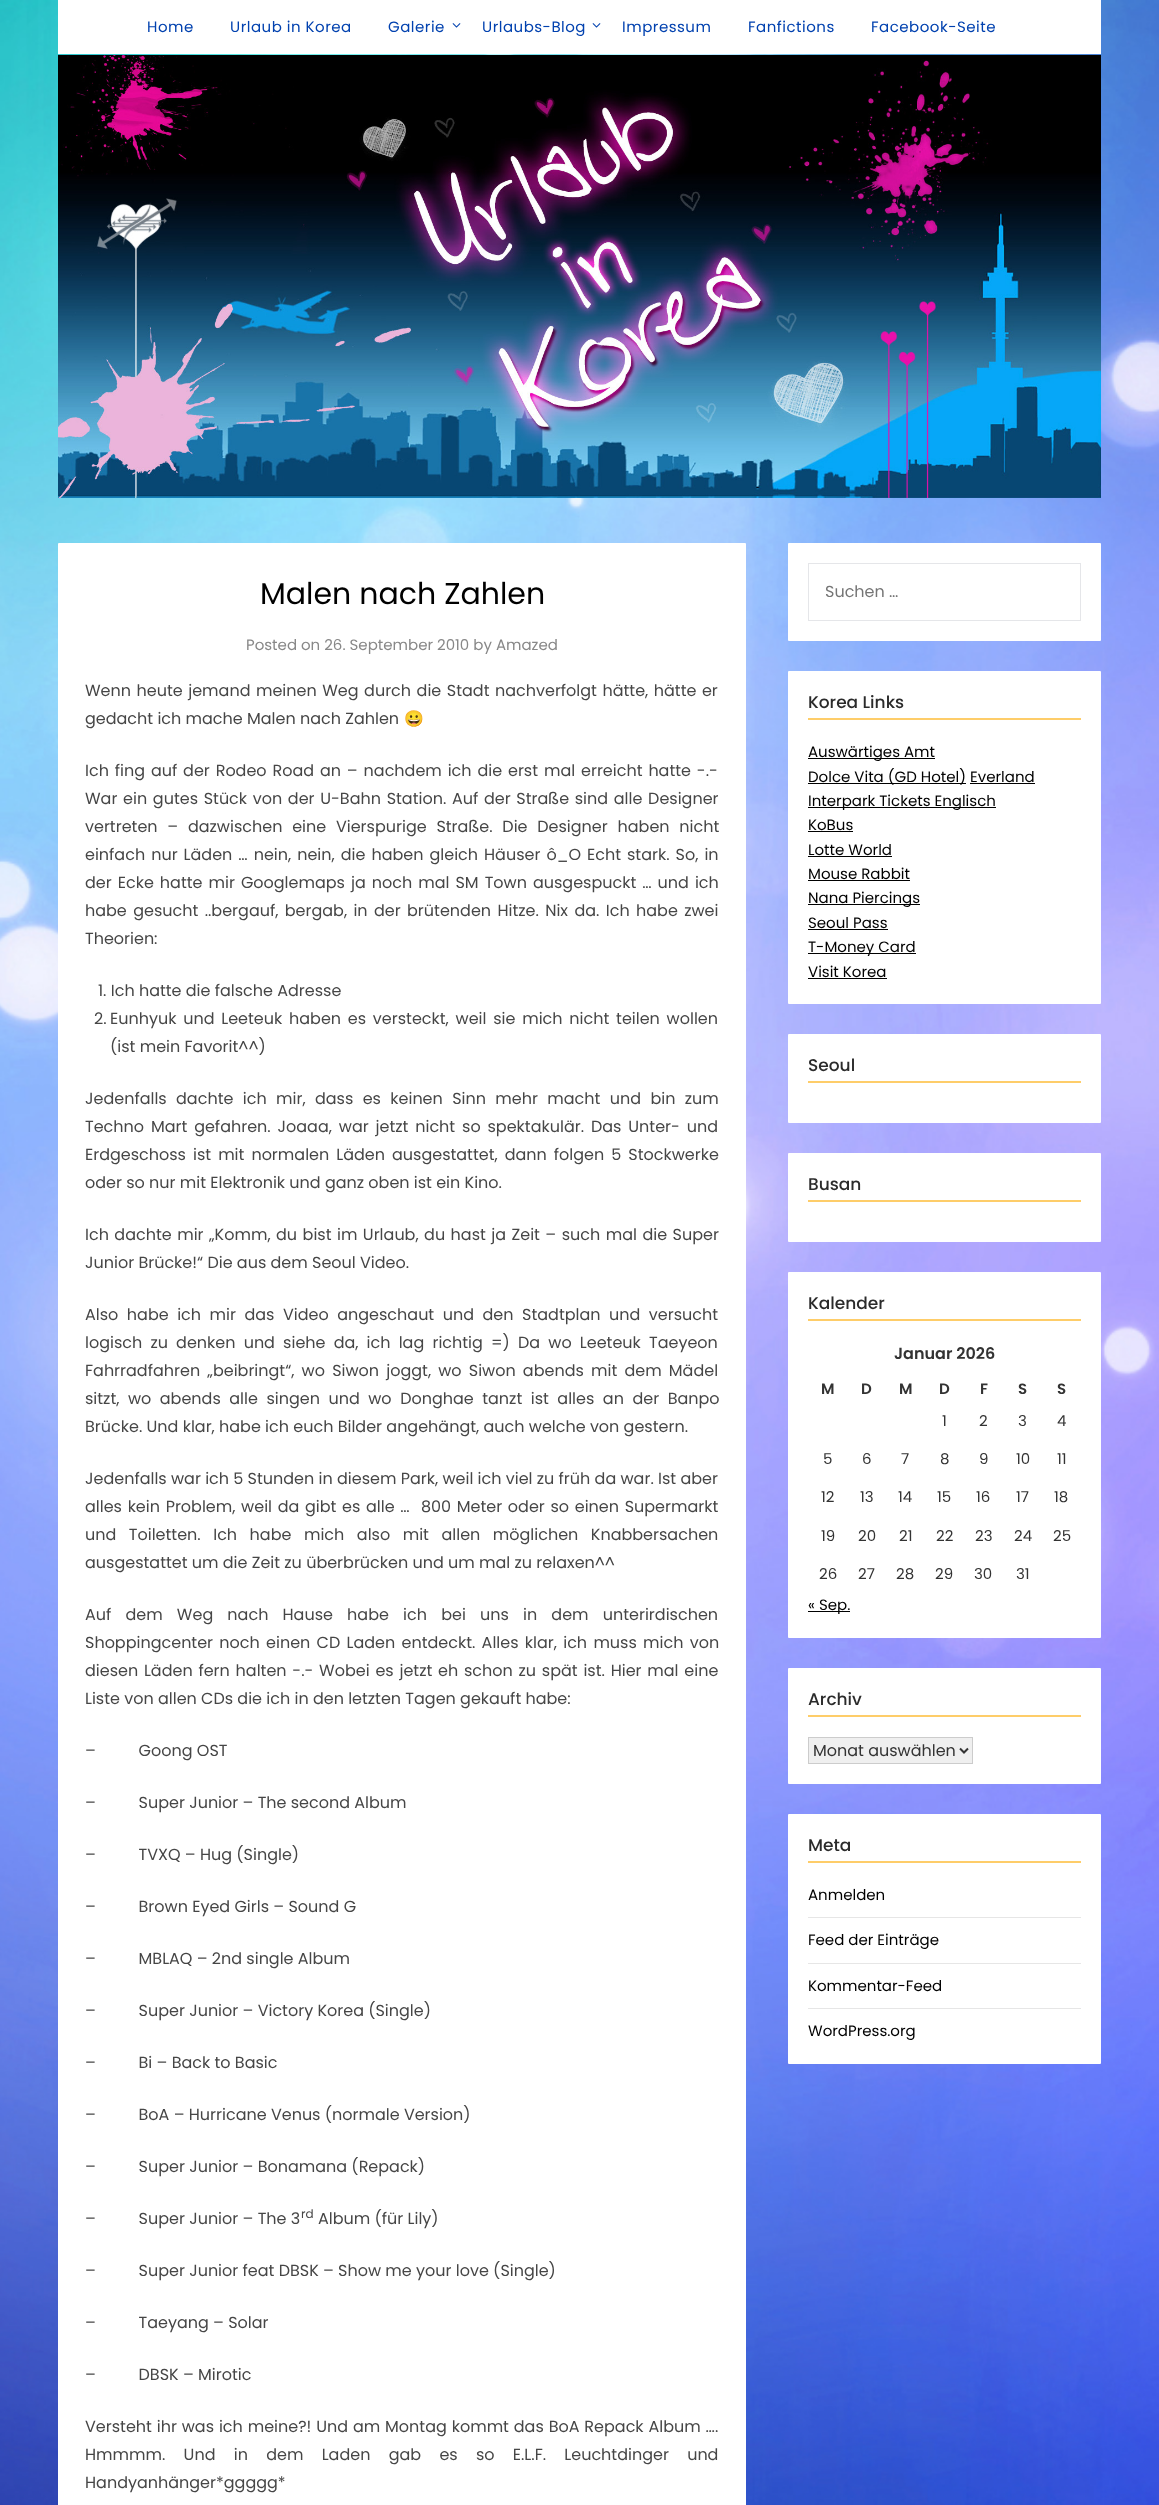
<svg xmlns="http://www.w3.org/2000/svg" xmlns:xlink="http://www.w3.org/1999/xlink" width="1159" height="2505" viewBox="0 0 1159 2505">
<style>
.cls-1{font:15px Poppins;letter-spacing:0.5px;fill:#0141af}
.cls-2{font:30px Poppins;fill:#000000}
.cls-3{font:15px Poppins;fill:#888888}
.cls-4{font:16px Poppins;fill:#464646}
.cls-5{font:16px Noto Color Emoji;fill:#464646}
.cls-6{font:12px Poppins;fill:#464646}
.cls-7{font:16px Poppins;fill:#757575}
.cls-8{font:500 17px Poppins;fill:#2b2b2b}
.cls-9{font:15px Poppins;fill:#000000}
.cls-10{font:600 16px Poppins;fill:#333333}
.cls-11{font:600 15px Poppins;fill:#333333}
.cls-12{font:15px Poppins;fill:#333333}
.cls-13{font:16px Poppins;fill:#333333}
</style>
<rect width="100%" height="100%" fill="#ffffff"/>
<image xlink:href="image0.png" x="0" y="0" width="1159" height="2505"/>
<rect fill="#ffffff" x="58" y="0" width="1043" height="54"/>
<image xlink:href="image1.png" x="452" y="23" width="9" height="5"/>
<image xlink:href="image1.png" x="592" y="23" width="9" height="5"/>
<image xlink:href="image2.png" x="58" y="55" width="1043" height="443"/>
<rect fill="#ffffff" x="58" y="543" width="688" height="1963" rx="1"/>
<rect fill="#ffffff" x="788" y="543" width="313" height="98" rx="1"/>
<rect fill="none" stroke="#e5e6e9" x="808.5" y="563.5" width="272" height="57"/>
<rect fill="#ffffff" x="788" y="671" width="313" height="333" rx="1"/>
<rect fill="#fecd69" x="808" y="718" width="273" height="2"/>
<rect fill="#000000" x="808" y="758" width="127" height="1"/>
<rect fill="#000000" x="808" y="783" width="158" height="1"/>
<rect fill="#000000" x="970" y="783" width="65" height="1"/>
<rect fill="#000000" x="808" y="807" width="188" height="1"/>
<rect fill="#000000" x="808" y="831" width="45" height="1"/>
<rect fill="#000000" x="808" y="856" width="84" height="1"/>
<rect fill="#000000" x="808" y="880" width="102" height="1"/>
<rect fill="#000000" x="808" y="904" width="112" height="1"/>
<rect fill="#000000" x="808" y="929" width="80" height="1"/>
<rect fill="#000000" x="808" y="953" width="108" height="1"/>
<rect fill="#000000" x="808" y="978" width="79" height="1"/>
<rect fill="#ffffff" x="788" y="1034" width="313" height="89" rx="1"/>
<rect fill="#fecd69" x="808" y="1081" width="273" height="2"/>
<rect fill="#ffffff" x="788" y="1153" width="313" height="89" rx="1"/>
<rect fill="#fecd69" x="808" y="1200" width="273" height="2"/>
<rect fill="#ffffff" x="788" y="1272" width="313" height="366" rx="1"/>
<rect fill="#fecd69" x="808" y="1319" width="273" height="2"/>
<rect fill="#000000" x="808" y="1611" width="42" height="1"/>
<rect fill="#ffffff" x="788" y="1668" width="313" height="116" rx="1"/>
<rect fill="#fecd69" x="808" y="1715" width="273" height="2"/>
<rect fill="#efefef" stroke="#cccccc" x="808.5" y="1737.5" width="164" height="26"/>
<path fill="none" stroke="#333333" stroke-width="2" d="M960 1748.5L964 1752.5L968 1748.5"/>
<rect fill="#ffffff" x="788" y="1814" width="313" height="250" rx="1"/>
<rect fill="#fecd69" x="808" y="1861" width="273" height="2"/>
<rect fill="#e6e6e6" x="808" y="1917" width="273" height="1"/>
<rect fill="#e6e6e6" x="808" y="1963" width="273" height="1"/>
<rect fill="#e6e6e6" x="808" y="2008" width="273" height="1"/>
<text class="cls-1" x="147" y="32">Home</text>
<text class="cls-1" x="230" y="32">Urlaub in Korea</text>
<text class="cls-1" x="388" y="32">Galerie</text>
<text class="cls-1" x="482" y="32">Urlaubs-Blog</text>
<text class="cls-1" x="622" y="32">Impressum</text>
<text class="cls-1" x="748" y="32">Fanfictions</text>
<text class="cls-1" x="871" y="32">Facebook-Seite</text>
<text class="cls-2" x="260" y="604">Malen nach Zahlen</text>
<text class="cls-3" x="246" y="650">Posted on 26. September 2010 by Amazed</text>
<text class="cls-4"><tspan x="85" y="696" word-spacing="1.25">Wenn heute jemand meinen Weg durch die Stadt nachverfolgt hätte, hätte er</tspan><tspan x="85" y="724">gedacht ich mache Malen nach Zahlen</tspan></text>
<text class="cls-5" x="404" y="724">😀</text>
<text class="cls-4"><tspan x="85" y="776" word-spacing="1.6">Ich fing auf der Rodeo Road an – nachdem ich die erst mal erreicht hatte -.-</tspan><tspan x="85" y="804" word-spacing="1.4">War ein gutes Stück von der U-Bahn Station. Auf der Straße sind alle Designer</tspan><tspan x="85" y="832" word-spacing="5.5">vertreten – dazwischen eine Vierspurige Straße. Die Designer haben nicht</tspan><tspan x="85" y="860" word-spacing="1.75">einfach nur Läden … nein, nein, die haben gleich Häuser ô_O Echt stark. So, in</tspan><tspan x="85" y="888" word-spacing="1.75">der Ecke hatte mir Googlemaps ja noch mal SM Town ausgespuckt … und ich</tspan><tspan x="85" y="916" word-spacing="2.1">habe gesucht ..bergauf, bergab, in der brütenden Hitze. Nix da. Ich habe zwei</tspan><tspan x="85" y="944">Theorien:</tspan></text>
<text class="cls-4" x="98" y="996">1. Ich hatte die falsche Adresse</text>
<text class="cls-4" x="94" y="1024">2.</text>
<text class="cls-4"><tspan x="110" y="1024" word-spacing="2.5">Eunhyuk und Leeteuk haben es versteckt, weil sie mich nicht teilen wollen</tspan><tspan x="110" y="1052">(ist mein Favorit^^)</tspan></text>
<text class="cls-4"><tspan x="85" y="1104" word-spacing="5.1">Jedenfalls dachte ich mir, dass es keinen Sinn mehr macht und bin zum</tspan><tspan x="85" y="1132" word-spacing="2.6">Techno Mart gefahren. Joaaa, war jetzt nicht so spektakulär. Das Unter- und</tspan><tspan x="85" y="1160" word-spacing="2.75">Erdgeschoss ist mit normalen Läden ausgestattet, dann folgen 5 Stockwerke</tspan><tspan x="85" y="1188">oder so nur mit Elektronik und ganz oben ist ein Kino.</tspan></text>
<text class="cls-4"><tspan x="85" y="1240" word-spacing="1.2">Ich dachte mir „Komm, du bist im Urlaub, du hast ja Zeit – such mal die Super</tspan><tspan x="85" y="1268">Junior Brücke!“ Die aus dem Seoul Video.</tspan></text>
<text class="cls-4"><tspan x="85" y="1320" word-spacing="4.25">Also habe ich mir das Video angeschaut und den Stadtplan und versucht</tspan><tspan x="85" y="1348" word-spacing="3.9">logisch zu denken und siehe da, ich lag richtig =) Da wo Leeteuk Taeyeon</tspan><tspan x="85" y="1376" word-spacing="2.9">Fahrradfahren „beibringt“, wo Siwon joggt, wo Siwon abends mit dem Mädel</tspan><tspan x="85" y="1404" word-spacing="4.25">sitzt, wo abends alle singen und wo Donghae tanzt ist alles an der Banpo</tspan><tspan x="85" y="1432">Brücke. Und klar, habe ich euch Bilder angehängt, auch welche von gestern.</tspan></text>
<text class="cls-4" xml:space="preserve"><tspan x="85" y="1484">Jedenfalls war ich 5 Stunden in diesem Park, weil ich viel zu früh da war. Ist aber</tspan><tspan x="85" y="1512" word-spacing="1.4">alles kein Problem, weil da gibt es alle …  800 Meter oder so einen Supermarkt</tspan><tspan x="85" y="1540" word-spacing="8.25">und Toiletten. Ich habe mich also mit allen möglichen Knabbersachen</tspan><tspan x="85" y="1568">ausgestattet um die Zeit zu überbrücken und um mal zu relaxen^^</tspan></text>
<text class="cls-4"><tspan x="85" y="1620" word-spacing="9.9">Auf dem Weg nach Hause habe ich bei uns in dem unterirdischen</tspan><tspan x="85" y="1648" word-spacing="2">Shoppingcenter noch einen CD Laden entdeckt. Alles klar, ich muss mich von</tspan><tspan x="85" y="1676" word-spacing="1.5">diesen Läden fern halten -.- Wobei es jetzt eh schon zu spät ist. Hier mal eine</tspan><tspan x="85" y="1704">Liste von allen CDs die ich in den letzten Tagen gekauft habe:</tspan></text>
<text class="cls-4" xml:space="preserve" x="85" y="1756">–          Goong OST</text>
<text class="cls-4" xml:space="preserve" x="85" y="1808">–          Super Junior – The second Album</text>
<text class="cls-4" xml:space="preserve" x="85" y="1860">–          TVXQ – Hug (Single)</text>
<text class="cls-4" xml:space="preserve" x="85" y="1912">–          Brown Eyed Girls – Sound G</text>
<text class="cls-4" xml:space="preserve" x="85" y="1964">–          MBLAQ – 2nd single Album</text>
<text class="cls-4" xml:space="preserve" x="85" y="2016">–          Super Junior – Victory Korea (Single)</text>
<text class="cls-4" xml:space="preserve" x="85" y="2068">–          Bi – Back to Basic</text>
<text class="cls-4" xml:space="preserve" x="85" y="2120">–          BoA – Hurricane Venus (normale Version)</text>
<text class="cls-4" xml:space="preserve" x="85" y="2172">–          Super Junior – Bonamana (Repack)</text>
<text class="cls-4" xml:space="preserve" x="85" y="2224">–          Super Junior – The 3</text>
<text class="cls-6" x="301" y="2218">rd</text>
<text class="cls-4" x="318" y="2224">Album (für Lily)</text>
<text class="cls-4" xml:space="preserve" x="85" y="2276">–          Super Junior feat DBSK – Show me your love (Single)</text>
<text class="cls-4" xml:space="preserve" x="85" y="2328">–          Taeyang – Solar</text>
<text class="cls-4" xml:space="preserve" x="85" y="2380">–          DBSK – Mirotic</text>
<text class="cls-4"><tspan x="85" y="2432" word-spacing="0.6">Versteht ihr was ich meine?! Und am Montag kommt das BoA Repack Album ….</tspan><tspan x="85" y="2460" word-spacing="14">Hmmmm. Und in dem Laden gab es so E.L.F. Leuchtdinger und</tspan><tspan x="85" y="2488">Handyanhänger*ggggg*</tspan></text>
<text class="cls-7" x="825" y="597">Suchen …</text>
<text class="cls-8" x="808" y="708">Korea Links</text>
<text class="cls-9"><tspan x="808" y="757">Auswärtiges Amt</tspan><tspan x="808" y="782">Dolce Vita (GD Hotel) Everland</tspan><tspan x="808" y="806">Interpark Tickets Englisch</tspan><tspan x="808" y="830">KoBus</tspan><tspan x="808" y="855">Lotte World</tspan><tspan x="808" y="879">Mouse Rabbit</tspan><tspan x="808" y="903">Nana Piercings</tspan><tspan x="808" y="928">Seoul Pass</tspan><tspan x="808" y="952">T-Money Card</tspan><tspan x="808" y="977">Visit Korea</tspan></text>
<text class="cls-8" x="808" y="1071">Seoul</text>
<text class="cls-8" x="808" y="1190">Busan</text>
<text class="cls-8" x="808" y="1309">Kalender</text>
<text class="cls-10" x="894" y="1359">Januar 2026</text>
<text class="cls-11" x="821" y="1394">M</text>
<text class="cls-11" x="861" y="1394">D</text>
<text class="cls-11" x="899" y="1394">M</text>
<text class="cls-11" x="939" y="1394">D</text>
<text class="cls-11" x="980" y="1394">F</text>
<text class="cls-11" x="1018" y="1394">S</text>
<text class="cls-11" x="1057" y="1394">S</text>
<text class="cls-12" x="942" y="1426">1</text>
<text class="cls-12" x="979" y="1426">2</text>
<text class="cls-12" x="1018" y="1426">3</text>
<text class="cls-12" x="1057" y="1426">4</text>
<text class="cls-12" x="823" y="1464">5</text>
<text class="cls-12" x="862" y="1464">6</text>
<text class="cls-12" x="901" y="1464">7</text>
<text class="cls-12" x="940" y="1464">8</text>
<text class="cls-12" x="979" y="1464">9</text>
<text class="cls-12" x="1016" y="1464">10</text>
<text class="cls-12" x="1057" y="1464">11</text>
<text class="cls-12" x="821" y="1502">12</text>
<text class="cls-12" x="860" y="1502">13</text>
<text class="cls-12" x="898" y="1502">14</text>
<text class="cls-12" x="937" y="1502">15</text>
<text class="cls-12" x="976" y="1502">16</text>
<text class="cls-12" x="1016" y="1502">17</text>
<text class="cls-12" x="1054" y="1502">18</text>
<text class="cls-12" x="821" y="1541">19</text>
<text class="cls-12" x="858" y="1541">20</text>
<text class="cls-12" x="899" y="1541">21</text>
<text class="cls-12" x="936" y="1541">22</text>
<text class="cls-12" x="975" y="1541">23</text>
<text class="cls-12" x="1014" y="1541">24</text>
<text class="cls-12" x="1053" y="1541">25</text>
<text class="cls-12" x="819" y="1579">26</text>
<text class="cls-12" x="858" y="1579">27</text>
<text class="cls-12" x="896" y="1579">28</text>
<text class="cls-12" x="935" y="1579">29</text>
<text class="cls-12" x="974" y="1579">30</text>
<text class="cls-12" x="1016" y="1579">31</text>
<text class="cls-9" x="808" y="1610">« Sep.</text>
<text class="cls-8" x="808" y="1705">Archiv</text>
<text class="cls-13" x="813" y="1756">Monat auswählen</text>
<text class="cls-8" x="808" y="1851">Meta</text>
<text class="cls-9" x="808" y="1900">Anmelden</text>
<text class="cls-9" x="808" y="1945">Feed der Einträge</text>
<text class="cls-9" x="808" y="1991">Kommentar-Feed</text>
<text class="cls-9" x="808" y="2036">WordPress.org</text>
</svg>
